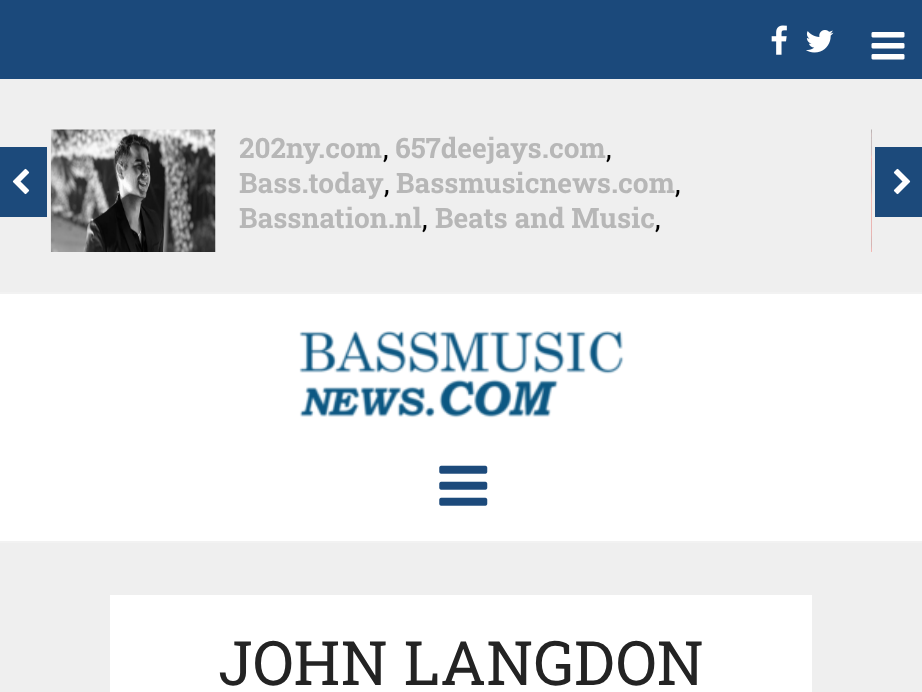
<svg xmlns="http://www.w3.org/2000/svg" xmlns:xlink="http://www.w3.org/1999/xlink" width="922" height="692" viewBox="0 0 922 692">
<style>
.cls-1{font:bold 28px Roboto Slab;fill:#b7b7b7}
.cls-2{font:28px Roboto Slab;fill:#000000}
.cls-3{font:61.25px Roboto Slab;fill:#232323}
</style>
<rect width="100%" height="100%" fill="#efefef"/>
<rect fill="#1b497b" x="0" y="0" width="922" height="79"/>
<image xlink:href="image0.png" x="871" y="32" width="34" height="28"/>
<image xlink:href="image1.png" x="771" y="25" width="16" height="30"/>
<image xlink:href="image2.png" x="806" y="30" width="28" height="23"/>
<rect fill="#1c4a7b" x="0" y="147" width="47" height="70"/>
<image xlink:href="image3.png" x="12" y="168" width="18" height="27"/>
<image xlink:href="image4.png" x="50" y="129" width="166" height="123"/>
<image xlink:href="image5.png" x="871" y="129" width="1" height="123"/>
<rect fill="#1c4a7b" x="875" y="147" width="47" height="70"/>
<image xlink:href="image6.png" x="893" y="168" width="18" height="27"/>
<rect fill="#ffffff" x="0" y="294" width="922" height="247"/>
<rect fill="#f2f2f2" x="0" y="292" width="922" height="2"/>
<image xlink:href="image7.png" x="299" y="331" width="325" height="87"/>
<rect fill="#f2f2f2" x="0" y="541" width="922" height="2"/>
<image xlink:href="image8.png" x="439" y="465" width="49" height="41"/>
<rect fill="#ffffff" x="110" y="595" width="702" height="97"/>
<text class="cls-1" x="239" y="158">202ny.com</text>
<text class="cls-2" x="383" y="158">,</text>
<text class="cls-1" x="395" y="158">657deejays.com</text>
<text class="cls-2" x="606" y="158">,</text>
<text class="cls-1" x="239" y="193">Bass.today</text>
<text class="cls-2" x="384" y="193">,</text>
<text class="cls-1" x="396" y="193">Bassmusicnews.com</text>
<text class="cls-2" x="675" y="193">,</text>
<text class="cls-1" x="239" y="228">Bassnation.nl</text>
<text class="cls-2" x="422" y="228">,</text>
<text class="cls-1" x="435" y="228">Beats and Music</text>
<text class="cls-2" x="655" y="228">,</text>
<text class="cls-3" x="218" y="685">JOHN LANGDON</text>
</svg>
